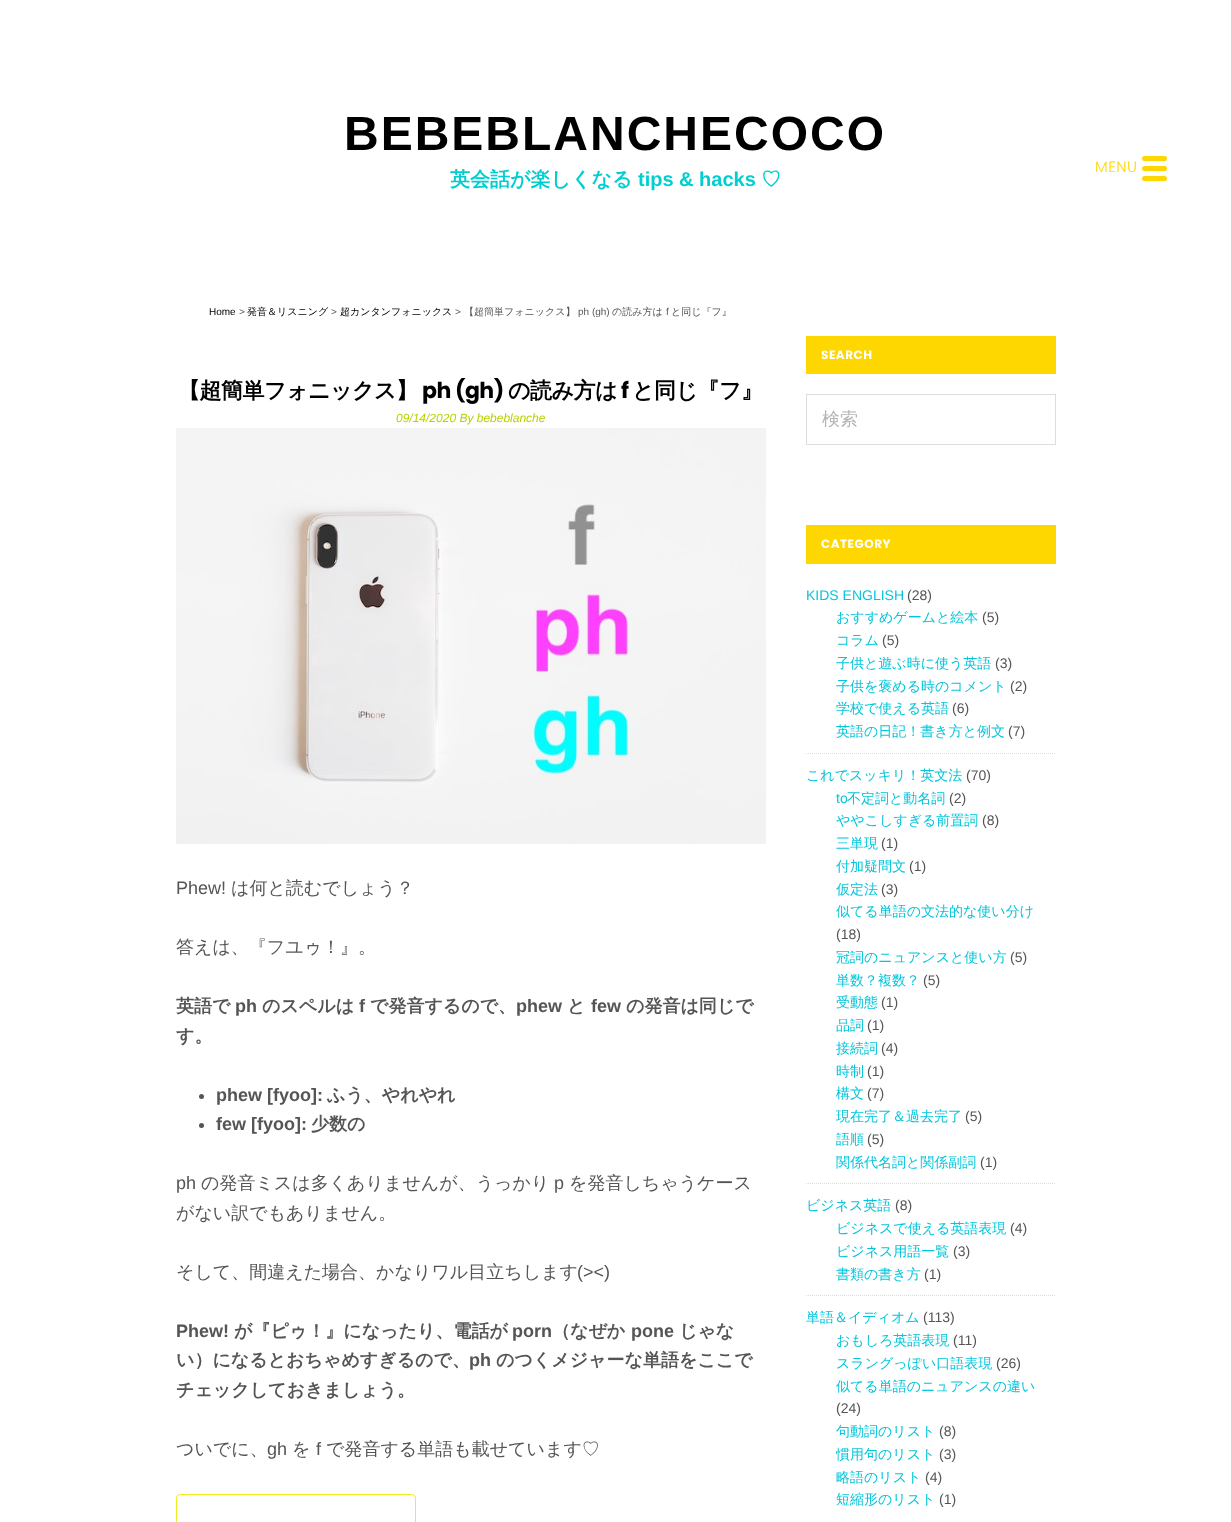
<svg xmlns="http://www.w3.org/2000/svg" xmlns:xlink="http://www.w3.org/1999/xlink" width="1231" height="1522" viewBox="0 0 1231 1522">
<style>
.cls-1{font:bold 48px Liberation Sans;letter-spacing:2px;fill:#000000}
.cls-2{font:bold 20px WenQuanYi Zen Hei;fill:#00ced1}
.cls-3{font:bold 20px Liberation Sans;fill:#00ced1}
.cls-4{font:10px Liberation Sans;fill:#000000}
.cls-5{font:10px Liberation Sans;fill:#555555}
.cls-6{font:500 10px WenQuanYi Zen Hei;fill:#000000}
.cls-7{font:500 10px WenQuanYi Zen Hei;fill:#555555}
.cls-8{font:bold 22px WenQuanYi Zen Hei;letter-spacing:-0.5px;fill:#000000}
.cls-9{font:bold 22px Poppins;letter-spacing:-0.5px;fill:#000000}
.cls-10{font:italic 12px Liberation Sans;fill:#b8d200}
.cls-11{font:18px Liberation Sans;fill:#555555}
.cls-12{font:500 18px WenQuanYi Zen Hei;fill:#555555}
.cls-13{font:bold 18px WenQuanYi Zen Hei;fill:#555555}
.cls-14{font:bold 18px Liberation Sans;fill:#555555}
.cls-15{font:bold 12px Poppins;letter-spacing:0.5px;fill:#ffffff}
.cls-16{font:500 18px WenQuanYi Zen Hei;fill:#b4b4b4}
.cls-17{font:14px Liberation Sans;fill:#04c5db}
.cls-18{font:14px Liberation Sans;fill:#555555}
.cls-19{font:500 14px WenQuanYi Zen Hei;fill:#04c5db}
.cls-20{font:300 15px Poppins;letter-spacing:0.5px;fill:#ffd700}
</style>
<rect width="100%" height="100%" fill="#ffffff"/>
<image xlink:href="image0.png" x="176" y="428" width="590" height="416"/>
<circle fill="#555555" cx="201.5" cy="1096.5" r="2.5"/>
<circle fill="#555555" cx="201.5" cy="1125.5" r="2.5"/>
<rect fill="none" stroke="#eeee22" x="176.5" y="1494.5" width="239" height="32" rx="3.5"/>
<rect fill="#ffd700" x="806" y="336" width="250" height="38"/>
<rect fill="none" stroke="#dddddd" x="806.5" y="394.5" width="249" height="50"/>
<rect fill="#ffd700" x="806" y="525" width="250" height="39"/>
<path fill="none" stroke="#dddddd" stroke-dasharray="1 1" d="M806 753.5H1056"/>
<path fill="none" stroke="#dddddd" stroke-dasharray="1 1" d="M806 1183.5H1056"/>
<path fill="none" stroke="#dddddd" stroke-dasharray="1 1" d="M806 1295.5H1056"/>
<rect fill="#ffd700" x="1142" y="166" width="25" height="5" rx="2.5"/>
<rect fill="#ffd700" x="1142" y="156" width="25" height="5" rx="2.5"/>
<rect fill="#ffd700" x="1142" y="176" width="25" height="5" rx="2.5"/>
<text class="cls-1" x="344" y="150">BEBEBLANCHECOCO</text>
<text class="cls-2" x="450" y="186">英会話が楽しくなる</text>
<text class="cls-3" x="638" y="186">tips &amp; hacks</text>
<text class="cls-2" x="761" y="186">♡</text>
<text class="cls-4" x="209" y="315">Home</text>
<text class="cls-5" x="239" y="315">&gt;</text>
<text class="cls-6" x="247" y="315">発音＆リスニング</text>
<text class="cls-5" x="331" y="315">&gt;</text>
<text class="cls-6" x="340" y="315">超カンタンフォニックス</text>
<text class="cls-5" x="455" y="315">&gt;</text>
<text class="cls-7" x="464" y="315">【超簡単フォニックス】</text>
<text class="cls-5" x="578" y="315">ph (gh)</text>
<text class="cls-7" x="612" y="315">の読み方は</text>
<text class="cls-5" x="666" y="315">f</text>
<text class="cls-7" x="671" y="315">と同じ『フ』</text>
<text class="cls-8" x="178" y="398">【超簡単フォニックス】</text>
<text class="cls-9" x="422" y="398">ph (gh)</text>
<text class="cls-8" x="508" y="398">の読み方は</text>
<text class="cls-9" x="621" y="398">f</text>
<text class="cls-8" x="632" y="398">と同じ『フ』</text>
<text class="cls-10" x="396" y="422">09/14/2020 By bebeblanche</text>
<text class="cls-11" x="176" y="894">Phew!</text>
<text class="cls-12" x="231" y="894">は何と読むでしょう？</text>
<text class="cls-12" x="176" y="953">答えは、『フユゥ！』。</text>
<text class="cls-13" x="176" y="1012">英語で</text>
<text class="cls-14" x="235" y="1012">ph</text>
<text class="cls-13" x="262" y="1012">のスペルは</text>
<text class="cls-14" x="359" y="1012">f</text>
<text class="cls-13" x="370" y="1012">で発音するので、</text>
<text class="cls-14" x="516" y="1012">phew</text>
<text class="cls-13" x="567" y="1012">と</text>
<text class="cls-14" x="591" y="1012">few</text>
<text class="cls-13" x="626" y="1012">の発音は同じで</text>
<text class="cls-13" x="176" y="1042">す。</text>
<text class="cls-14" x="216" y="1101">phew [fyoo]:</text>
<text class="cls-13" x="327" y="1101">ふう、やれやれ</text>
<text class="cls-14" x="216" y="1130">few [fyoo]:</text>
<text class="cls-13" x="311" y="1130">少数の</text>
<text class="cls-11" x="176" y="1189">ph</text>
<text class="cls-12" x="201" y="1189">の発音ミスは多くありませんが、うっかり</text>
<text class="cls-11" x="554" y="1189">p</text>
<text class="cls-12" x="569" y="1189">を発音しちゃうケース</text>
<text class="cls-12" x="176" y="1219">がない訳でもありません。</text>
<text class="cls-12" x="176" y="1278">そして、間違えた場合、かなりワル目立ちします</text>
<text class="cls-11" x="577" y="1278">(&gt;&lt;)</text>
<text class="cls-14" x="176" y="1337">Phew!</text>
<text class="cls-13" x="234" y="1337">が『ピゥ！』になったり、電話が</text>
<text class="cls-14" x="512" y="1337">porn</text>
<text class="cls-13" x="552" y="1337">（なぜか</text>
<text class="cls-14" x="631" y="1337">pone</text>
<text class="cls-13" x="679" y="1337">じゃな</text>
<text class="cls-13" x="176" y="1366">い）になるとおちゃめすぎるので、</text>
<text class="cls-14" x="469" y="1366">ph</text>
<text class="cls-13" x="496" y="1366">のつくメジャーな単語をここで</text>
<text class="cls-13" x="176" y="1396">チェックしておきましょう。</text>
<text class="cls-12" x="176" y="1455">ついでに、</text>
<text class="cls-11" x="267" y="1455">gh</text>
<text class="cls-12" x="292" y="1455">を</text>
<text class="cls-11" x="316" y="1455">f</text>
<text class="cls-12" x="326" y="1455">で発音する単語も載せています♡</text>
<text class="cls-15" x="821" y="359">SEARCH</text>
<text class="cls-16" x="822" y="425">検索</text>
<text class="cls-15" x="821" y="548">CATEGORY</text>
<text class="cls-17" x="806" y="600">KIDS ENGLISH</text>
<text class="cls-18" x="907" y="600">(28)</text>
<text class="cls-19" x="836" y="622">おすすめゲームと絵本</text>
<text class="cls-18" x="982" y="622">(5)</text>
<text class="cls-19" x="836" y="645">コラム</text>
<text class="cls-18" x="882" y="645">(5)</text>
<text class="cls-19" x="836" y="668">子供と遊ぶ時に使う英語</text>
<text class="cls-18" x="995" y="668">(3)</text>
<text class="cls-19" x="836" y="691">子供を褒める時のコメント</text>
<text class="cls-18" x="1010" y="691">(2)</text>
<text class="cls-19" x="836" y="713">学校で使える英語</text>
<text class="cls-18" x="952" y="713">(6)</text>
<text class="cls-19" x="836" y="736">英語の日記！書き方と例文</text>
<text class="cls-18" x="1008" y="736">(7)</text>
<text class="cls-19" x="806" y="780">これでスッキリ！英文法</text>
<text class="cls-18" x="966" y="780">(70)</text>
<text class="cls-17" x="836" y="803">to</text>
<text class="cls-19" x="847" y="803">不定詞と動名詞</text>
<text class="cls-18" x="949" y="803">(2)</text>
<text class="cls-19" x="836" y="825">ややこしすぎる前置詞</text>
<text class="cls-18" x="982" y="825">(8)</text>
<text class="cls-19" x="836" y="848">三単現</text>
<text class="cls-18" x="881" y="848">(1)</text>
<text class="cls-19" x="836" y="871">付加疑問文</text>
<text class="cls-18" x="909" y="871">(1)</text>
<text class="cls-19" x="836" y="894">仮定法</text>
<text class="cls-18" x="881" y="894">(3)</text>
<text class="cls-19" x="836" y="916">似てる単語の文法的な使い分け</text>
<text class="cls-18" x="836" y="939">(18)</text>
<text class="cls-19" x="836" y="962">冠詞のニュアンスと使い方</text>
<text class="cls-18" x="1010" y="962">(5)</text>
<text class="cls-19" x="836" y="985">単数？複数？</text>
<text class="cls-18" x="923" y="985">(5)</text>
<text class="cls-19" x="836" y="1007">受動態</text>
<text class="cls-18" x="881" y="1007">(1)</text>
<text class="cls-19" x="836" y="1030">品詞</text>
<text class="cls-18" x="867" y="1030">(1)</text>
<text class="cls-19" x="836" y="1053">接続詞</text>
<text class="cls-18" x="881" y="1053">(4)</text>
<text class="cls-19" x="836" y="1076">時制</text>
<text class="cls-18" x="867" y="1076">(1)</text>
<text class="cls-19" x="836" y="1098">構文</text>
<text class="cls-18" x="867" y="1098">(7)</text>
<text class="cls-19" x="836" y="1121">現在完了＆過去完了</text>
<text class="cls-18" x="965" y="1121">(5)</text>
<text class="cls-19" x="836" y="1144">語順</text>
<text class="cls-18" x="867" y="1144">(5)</text>
<text class="cls-19" x="836" y="1167">関係代名詞と関係副詞</text>
<text class="cls-18" x="980" y="1167">(1)</text>
<text class="cls-19" x="806" y="1210">ビジネス英語</text>
<text class="cls-18" x="895" y="1210">(8)</text>
<text class="cls-19" x="836" y="1233">ビジネスで使える英語表現</text>
<text class="cls-18" x="1010" y="1233">(4)</text>
<text class="cls-19" x="836" y="1256">ビジネス用語一覧</text>
<text class="cls-18" x="953" y="1256">(3)</text>
<text class="cls-19" x="836" y="1279">書類の書き方</text>
<text class="cls-18" x="924" y="1279">(1)</text>
<text class="cls-19" x="806" y="1322">単語＆イディオム</text>
<text class="cls-18" x="923" y="1322">(113)</text>
<text class="cls-19" x="836" y="1345">おもしろ英語表現</text>
<text class="cls-18" x="953" y="1345">(11)</text>
<text class="cls-19" x="836" y="1368">スラングっぽい口語表現</text>
<text class="cls-18" x="996" y="1368">(26)</text>
<text class="cls-19" x="836" y="1391">似てる単語のニュアンスの違い</text>
<text class="cls-18" x="836" y="1413">(24)</text>
<text class="cls-19" x="836" y="1436">句動詞のリスト</text>
<text class="cls-18" x="939" y="1436">(8)</text>
<text class="cls-19" x="836" y="1459">慣用句のリスト</text>
<text class="cls-18" x="939" y="1459">(3)</text>
<text class="cls-19" x="836" y="1482">略語のリスト</text>
<text class="cls-18" x="925" y="1482">(4)</text>
<text class="cls-19" x="836" y="1504">短縮形のリスト</text>
<text class="cls-18" x="939" y="1504">(1)</text>
<text class="cls-20" x="1095" y="172">MENU</text>
</svg>
